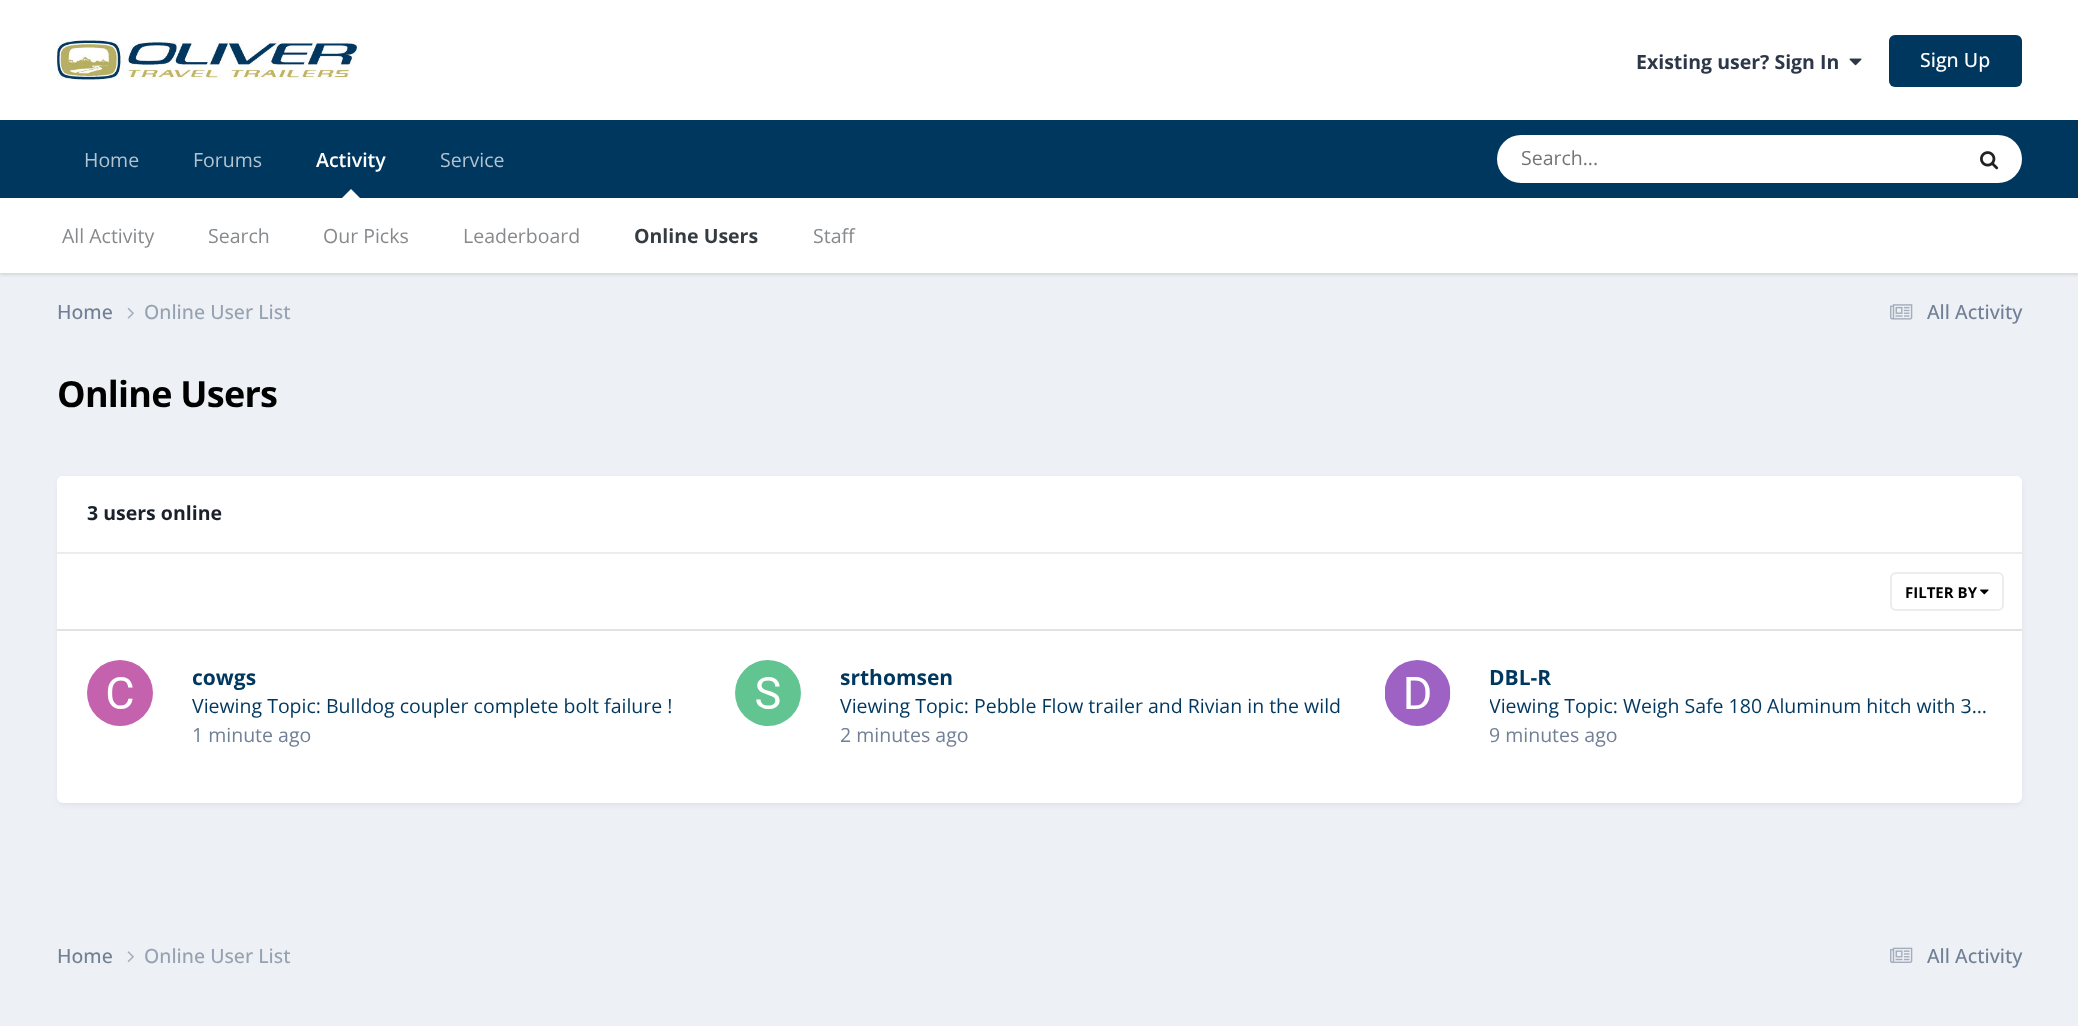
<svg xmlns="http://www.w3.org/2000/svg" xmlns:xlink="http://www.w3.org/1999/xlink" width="2078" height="1026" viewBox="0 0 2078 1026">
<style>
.cls-1{font:bold 19.5px Open Sans;fill:#2d3748}
.cls-2{font:500 19.5px Open Sans;fill:#ffffff}
.cls-3{font:600 19.5px Open Sans;fill:#ffffff}
.cls-4{font:19.5px Open Sans;fill:#868a8d}
.cls-5{font:bold 19.5px Open Sans;fill:#353c41}
.cls-6{font:19.5px Open Sans;fill:#b3c3cf}
.cls-7{font:19.5px Open Sans;fill:#757575}
.cls-8{font:500 19.5px Open Sans;fill:#718096}
.cls-9{font:500 19.5px Open Sans;fill:#96a2b2}
.cls-10{font:bold 36px Open Sans;letter-spacing:-0.75px;fill:#000000}
.cls-11{font:bold 19.5px Open Sans;fill:#1a202c}
.cls-12{font:bold 15px Open Sans;fill:#000000}
.cls-13{font:bold 21px Open Sans;fill:#00375f}
.cls-14{font:19.5px Open Sans;fill:#00375f}
.cls-15{font:19.5px Open Sans;fill:#718096}
</style>
<defs>
<clipPath id="clip1"><rect x="1490" y="692" width="502" height="30"/></clipPath>
</defs>
<rect width="100%" height="100%" fill="#edf0f4"/>
<rect fill="#ffffff" x="0" y="0" width="2078" height="120"/>
<image xlink:href="image0.png" x="57" y="40" width="300" height="40"/>
<image xlink:href="image1.png" x="1849" y="58" width="13" height="8"/>
<rect fill="#00375f" x="1889" y="35" width="133" height="52" rx="6"/>
<rect fill="#00375f" x="0" y="120" width="2078" height="78"/>
<rect fill="#000000" fill-opacity="0.1" filter="blur(1.5px)" x="0" y="200" width="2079" height="75"/>
<path fill="#ffffff" d="M360 198H342L351 189Z"/>
<rect fill="#ffffff" x="1497" y="135" width="525" height="48" rx="24"/>
<image xlink:href="image2.png" x="1980" y="151" width="19" height="19"/>
<rect fill="#ffffff" x="0" y="198" width="2078" height="75"/>
<image xlink:href="image3.png" x="127" y="307" width="7" height="12"/>
<image xlink:href="image4.png" x="1890" y="304" width="23" height="16"/>
<rect fill="#2d3748" fill-opacity="0.1" filter="blur(3px)" x="59" y="480" width="1962" height="324" rx="5"/>
<rect fill="#ffffff" x="57" y="476" width="1965" height="327" rx="6"/>
<path fill="#ffffff" d="M63 476H2016C2019.5 476 2022 478.5 2022 482V554H57V482C57 478.5 59.5 476 63 476Z"/>
<rect fill="#eaecef" x="57" y="552" width="1965" height="2"/>
<rect fill="#e1e2e3" x="57" y="629" width="1965" height="2"/>
<image xlink:href="image5.png" x="1980" y="589" width="9" height="6"/>
<rect fill="none" stroke="#ebecec" stroke-width="2" x="1891" y="573" width="112" height="37" rx="5"/>
<image xlink:href="image6.png" x="87" y="660" width="66" height="66"/>
<image xlink:href="image7.png" x="735" y="660" width="66" height="66"/>
<image xlink:href="image8.png" x="1385" y="660" width="66" height="66"/>
<image xlink:href="image9.png" x="127" y="951" width="7" height="11"/>
<image xlink:href="image10.png" x="1890" y="947" width="23" height="16"/>
<text class="cls-1" x="1636" y="69">Existing user? Sign In</text>
<text class="cls-2" x="1920" y="67">Sign Up</text>
<text class="cls-3" x="316" y="167">Activity</text>
<text class="cls-4" x="62" y="243">All Activity</text>
<text class="cls-4" x="208" y="243">Search</text>
<text class="cls-4" x="323" y="243">Our Picks</text>
<text class="cls-4" x="463" y="243">Leaderboard</text>
<text class="cls-5" x="634" y="243">Online Users</text>
<text class="cls-4" x="813" y="243">Staff</text>
<text class="cls-6" x="84" y="167">Home</text>
<text class="cls-6" x="193" y="167">Forums</text>
<text class="cls-6" x="440" y="167">Service</text>
<text class="cls-7" x="1521" y="165">Search...</text>
<text class="cls-8" x="57" y="319">Home</text>
<text class="cls-9" x="144" y="319">Online User List</text>
<text class="cls-8" x="1927" y="319">All Activity</text>
<text class="cls-10" x="57" y="407">Online Users</text>
<text class="cls-11" x="87" y="520">3 users online</text>
<text class="cls-12" x="1905" y="598">FILTER BY</text>
<text class="cls-13" x="192" y="685">cowgs</text>
<text class="cls-14" x="192" y="713">Viewing Topic: Bulldog coupler complete bolt failure !</text>
<text class="cls-15" x="192" y="742">1 minute ago</text>
<text class="cls-13" x="840" y="685">srthomsen</text>
<text class="cls-14" x="840" y="713">Viewing Topic: Pebble Flow trailer and Rivian in the wild</text>
<text class="cls-15" x="840" y="742">2 minutes ago</text>
<text class="cls-13" x="1489" y="685">DBL-R</text>
<g clip-path="url(#clip1)">
<text class="cls-14" x="1489" y="713">Viewing Topic: Weigh Safe 180 Aluminum hitch with 3…</text>
</g>
<text class="cls-15" x="1489" y="742">9 minutes ago</text>
<text class="cls-8" x="57" y="963">Home</text>
<text class="cls-9" x="144" y="963">Online User List</text>
<text class="cls-8" x="1927" y="963">All Activity</text>
</svg>
